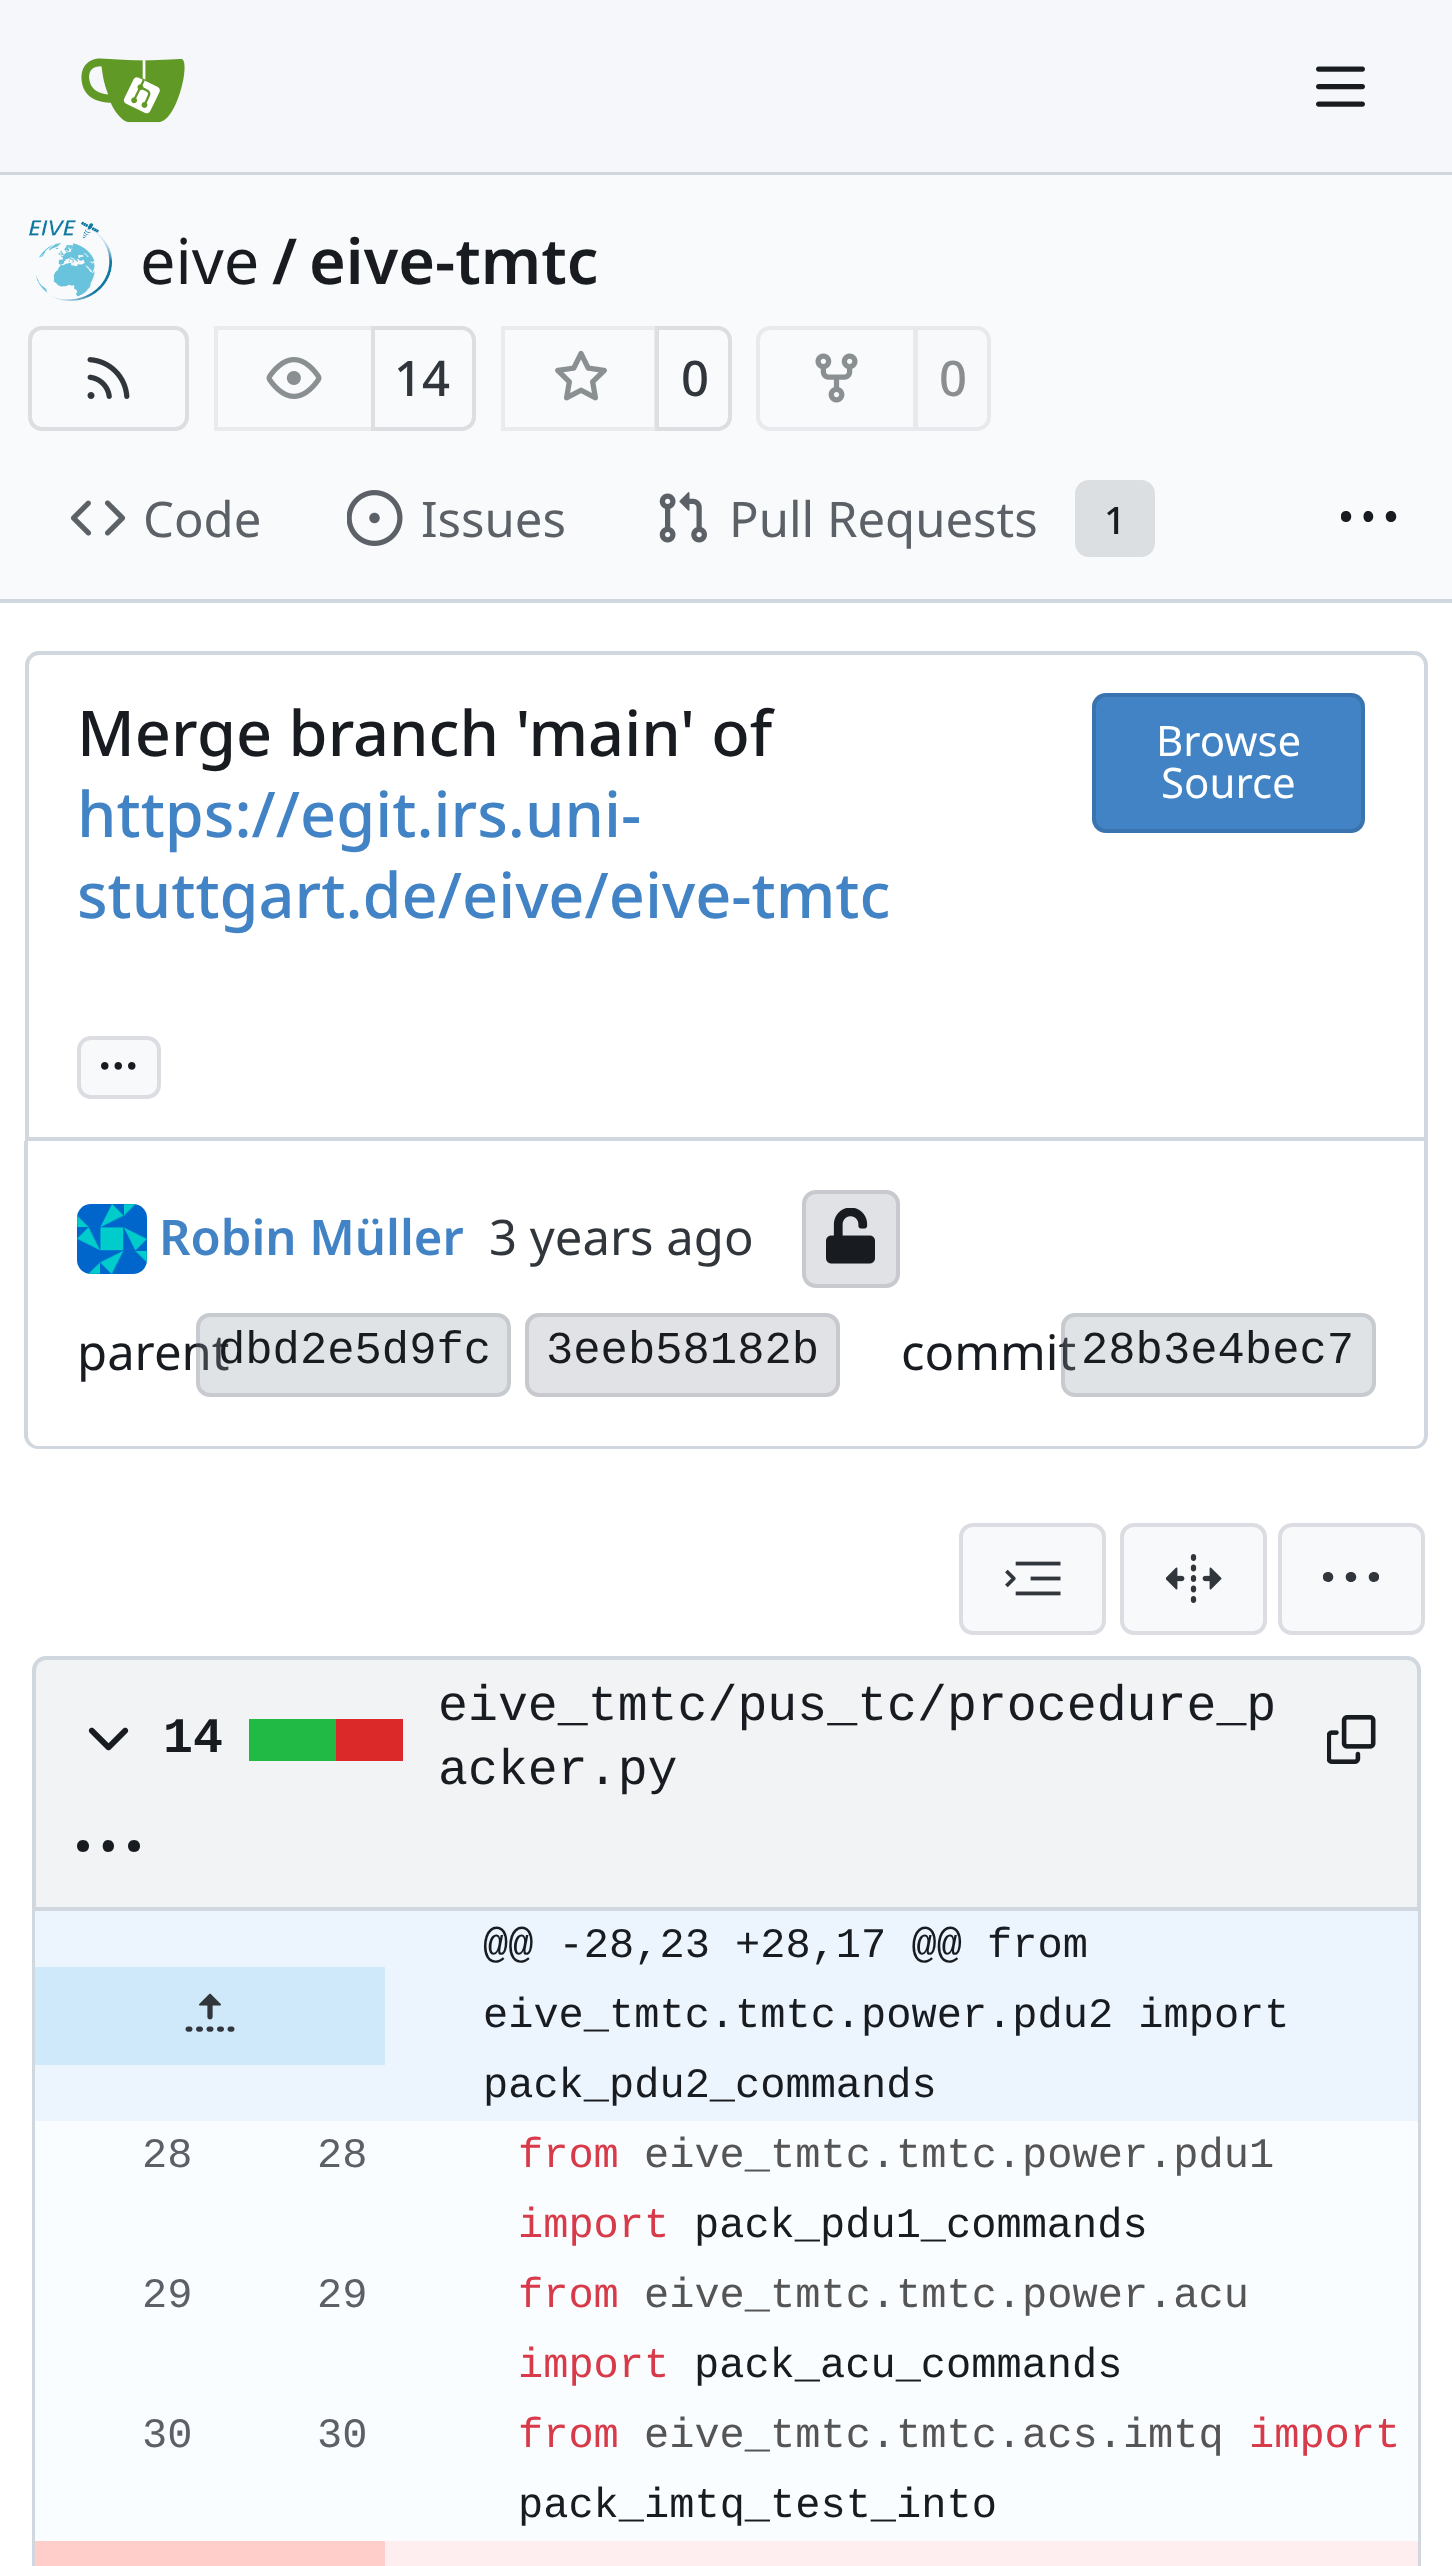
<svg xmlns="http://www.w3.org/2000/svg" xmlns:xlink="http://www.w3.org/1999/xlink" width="1452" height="2566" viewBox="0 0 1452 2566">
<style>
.cls-1{font:63px Noto Sans;fill:#181c21}
.cls-2{font:600 63px Noto Sans;fill:#181c21}
.cls-3{font:500 49px Noto Sans;fill:#30363b}
.cls-4{font:500 49px Noto Sans;fill:#8a8e91}
.cls-5{font:49px Noto Sans;fill:#5b6167}
.cls-6{font:500 38px Noto Sans;fill:#181c21}
.cls-7{font:500 63px Noto Sans;fill:#181c21}
.cls-8{font:500 63px Noto Sans;fill:#4183c4}
.cls-9{font:42px Noto Sans;fill:#ffffff}
.cls-10{font:600 49px Noto Sans;fill:#181c21}
.cls-11{font:600 49px Noto Sans;fill:#4183c4}
.cls-12{font:49px Noto Sans;fill:#30363b}
.cls-13{font:49px Noto Sans;fill:#181c21}
.cls-14{font:45.5px Liberation Mono;fill:#181c21}
.cls-15{font:bold 49.9px Liberation Mono;fill:#181c21}
.cls-16{font:49.9px Liberation Mono;fill:#181c21}
.cls-17{font:42px Liberation Mono;fill:#181c21}
.cls-18{font:42px Liberation Mono;fill:#5b6167}
.cls-19{font:42px Liberation Mono;fill:#d73a49}
.cls-20{font:42px Liberation Mono;fill:#555555}
</style>
<defs>
<clipPath id="clip1"><rect x="1341" y="490" width="56" height="56"/></clipPath>
<clipPath id="clip2"><rect x="1323" y="1551" width="56" height="56"/></clipPath>
</defs>
<rect width="100%" height="100%" fill="#ffffff"/>
<rect fill="#f6f7fa" x="0" y="0" width="1452" height="172"/>
<rect fill="#d0d7de" x="0" y="172" width="1452" height="3"/>
<image xlink:href="image0.png" x="81" y="58" width="104" height="65"/>
<image xlink:href="image1.png" x="1316" y="66" width="49" height="41"/>
<rect fill="#f9fafb" x="0" y="175" width="1452" height="424"/>
<image xlink:href="image2.png" x="29" y="220" width="83" height="81"/>
<rect fill="none" stroke="#dddee1" stroke-width="4" x="30" y="328" width="157" height="101" rx="12"/>
<image xlink:href="image3.png" x="87" y="357" width="43" height="42"/>
<path fill="none" stroke="#dddee1" stroke-width="4" d="M373 328H462C468.5 328 474 333.5 474 340V417C474 423.5 468.5 429 462 429H373Z"/>
<path fill="#f8f9fb" fill-opacity="0.55" d="M228 326H375V431H228C220.5 431 214 424.5 214 417V340C214 332.5 220.5 326 228 326Z"/>
<rect fill="none" stroke="#000017" stroke-opacity="0.06" stroke-width="4" x="216" y="328" width="157" height="101"/>
<image xlink:href="image4.png" x="266" y="357" width="56" height="42"/>
<path fill="none" stroke="#dddee1" stroke-width="4" d="M657 328H718C724.5 328 730 333.5 730 340V417C730 423.5 724.5 429 718 429H657Z"/>
<path fill="#f8f9fb" fill-opacity="0.55" d="M515 326H658V431H515C507.5 431 501 424.5 501 417V340C501 332.5 507.5 326 515 326Z"/>
<rect fill="none" stroke="#000017" stroke-opacity="0.06" stroke-width="4" x="503" y="328" width="153" height="101"/>
<image xlink:href="image5.png" x="555" y="350" width="52" height="51"/>
<path fill="none" stroke="#e9eaed" stroke-width="4" d="M770 328H915V429H770C763.5 429 758 423.5 758 417V340C758 333.5 763.5 328 770 328Z"/>
<image xlink:href="image6.png" x="815" y="353" width="43" height="50"/>
<path fill="#f8f9fb" stroke="#e8e9ed" stroke-width="4" d="M916 328H977C983.5 328 989 333.5 989 340V417C989 423.5 983.5 429 977 429H916Z"/>
<image xlink:href="image7.png" x="70" y="500" width="56" height="36"/>
<image xlink:href="image8.png" x="347" y="490" width="56" height="56"/>
<image xlink:href="image9.png" x="659" y="492" width="48" height="51"/>
<rect fill="#dbdfe2" x="1075" y="480" width="80" height="77" rx="14"/>
<g clip-path="url(#clip1)">
<path fill="#181c21" d="M1368 522C1375 522 1375 511 1368 511C1362 511 1362 522 1368 522M1346 522C1353 522 1353 511 1346 511C1339 511 1339 522 1346 522M1391 522C1398 522 1398 511 1391 511C1384 511 1384 522 1391 522"/>
</g>
<rect fill="#d0d7de" x="0" y="599" width="1452" height="4"/>
<path fill="none" stroke="#d0d7de" stroke-width="4" d="M39 653H1414C1420.5 653 1426 658.5 1426 665V1139H27V665C27 658.5 32.5 653 39 653Z"/>
<rect fill="#4183c4" x="1092" y="693" width="273" height="140" rx="14"/>
<rect fill="none" stroke="#000017" stroke-opacity="0.11" stroke-width="4" x="1094" y="695" width="269" height="136" rx="12"/>
<rect fill="#f8f9fb" x="77" y="1036" width="84" height="63" rx="14"/>
<rect fill="none" stroke="#000017" stroke-opacity="0.11" stroke-width="4" x="79" y="1038" width="80" height="59" rx="12"/>
<path fill="#d0d7de" fill-rule="evenodd" d="M24 1141H1428V1435C1428 1443 1422 1449 1414 1449H38C31 1449 24 1443 24 1435ZM28 1141H1424V1435C1424 1441 1420 1446 1414 1446H38C33 1446 28 1441 28 1435Z"/>
<image xlink:href="image10.png" x="77" y="1204" width="70" height="70"/>
<rect fill="#e0e2e5" x="802" y="1190" width="98" height="98" rx="14"/>
<rect fill="none" stroke="#000017" stroke-opacity="0.11" stroke-width="4" x="804" y="1192" width="94" height="94" rx="12"/>
<image xlink:href="image11.png" x="826" y="1208" width="49" height="56"/>
<rect fill="#e0e2e5" x="525" y="1313" width="315" height="84" rx="14"/>
<rect fill="none" stroke="#000017" stroke-opacity="0.11" stroke-width="4" x="527" y="1315" width="311" height="80" rx="12"/>
<rect fill="#f8f9fb" x="959" y="1523" width="147" height="112" rx="14"/>
<rect fill="none" stroke="#000017" stroke-opacity="0.11" stroke-width="4" x="961" y="1525" width="143" height="108" rx="12"/>
<image xlink:href="image12.png" x="1005" y="1561" width="56" height="35"/>
<rect fill="#f8f9fb" x="1120" y="1523" width="147" height="112" rx="14"/>
<rect fill="none" stroke="#000017" stroke-opacity="0.11" stroke-width="4" x="1122" y="1525" width="143" height="108" rx="12"/>
<image xlink:href="image13.png" x="1166" y="1554" width="56" height="49"/>
<rect fill="#f8f9fb" x="1278" y="1523" width="147" height="112" rx="14"/>
<rect fill="none" stroke="#000017" stroke-opacity="0.11" stroke-width="4" x="1280" y="1525" width="143" height="108" rx="12"/>
<g clip-path="url(#clip2)">
<path fill="#30363b" d="M1351 1582C1358 1582 1358 1572 1351 1572C1344 1572 1344 1582 1351 1582M1328 1582C1335 1582 1335 1572 1328 1572C1321 1572 1321 1582 1328 1582M1374 1582C1381 1582 1381 1572 1374 1572C1367 1572 1367 1582 1374 1582"/>
</g>
<path fill="#f1f3f5" stroke="#d0d7de" stroke-width="4" d="M46 1658H1407C1413.5 1658 1419 1663.5 1419 1670V1909H34V1670C34 1663.5 39.5 1658 46 1658Z"/>
<image xlink:href="image14.png" x="88" y="1727" width="41" height="24"/>
<rect fill="#db2828" x="336" y="1719" width="67" height="42"/>
<rect fill="#21ba45" x="249" y="1719" width="87" height="42"/>
<image xlink:href="image15.png" x="1327" y="1715" width="49" height="49"/>
<path fill="#181c21" d="M108 1852C116 1852 116 1840 108 1840C101 1840 101 1852 108 1852M83 1852C91 1852 91 1840 83 1840C75 1840 75 1852 83 1852M134 1852C142 1852 142 1840 134 1840C126 1840 126 1852 134 1852"/>
<path fill="#d0d7de" fill-rule="evenodd" d="M32 1911H1421V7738C1421 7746 1415 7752 1407 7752H46C38 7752 32 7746 32 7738ZM35 1911H1418V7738C1418 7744 1413 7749 1407 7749H46C40 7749 35 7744 35 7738Z"/>
<rect fill="#fafdff" x="35" y="2121" width="1383" height="420"/>
<rect fill="#ecf5fd" x="35" y="1911" width="1383" height="210"/>
<rect fill="#cfe8fa" x="35" y="1967" width="350" height="98"/>
<image xlink:href="image16.png" x="185" y="1993" width="50" height="39"/>
<rect fill="#ffeef0" x="385" y="2541" width="1033" height="25"/>
<rect fill="#ffcecb" x="35" y="2541" width="350" height="25"/>
<text class="cls-1" x="140" y="284">eive</text>
<text class="cls-2" x="272" y="284">/</text>
<text class="cls-2" x="309" y="284">eive-tmtc</text>
<text class="cls-3" x="394" y="396">14</text>
<text class="cls-3" x="681" y="396">0</text>
<text class="cls-4" x="939" y="396">0</text>
<text class="cls-5" x="143" y="537">Code</text>
<text class="cls-5" x="421" y="537">Issues</text>
<text class="cls-5" x="729" y="537">Pull Requests</text>
<text class="cls-6" x="1104" y="534">1</text>
<text class="cls-7" x="77" y="756">Merge branch 'main' of</text>
<text class="cls-8"><tspan x="77" y="837">https://egit.irs.uni-</tspan><tspan x="77" y="918">stuttgart.de/eive/eive-tmtc</tspan></text>
<text class="cls-9" x="1156" y="756">Browse</text>
<text class="cls-9" x="1161" y="798">Source</text>
<text class="cls-10" x="98" y="1069">...</text>
<text class="cls-11" x="159" y="1255">Robin Müller</text>
<text class="cls-12" x="489" y="1255">3 years ago</text>
<text class="cls-13" x="77" y="1370">parent</text>
<rect fill="#949da6" fill-opacity="0.29" x="196" y="1313" width="315" height="84" rx="14"/>
<rect fill="none" stroke="#000017" stroke-opacity="0.11" stroke-width="4" x="198" y="1315" width="311" height="80" rx="12"/>
<text class="cls-14" x="218" y="1363">dbd2e5d9fc</text>
<text class="cls-14" x="546" y="1363">3eeb58182b</text>
<text class="cls-13" x="901" y="1370">commit</text>
<rect fill="#949da6" fill-opacity="0.29" x="1061" y="1313" width="315" height="84" rx="14"/>
<rect fill="none" stroke="#000017" stroke-opacity="0.11" stroke-width="4" x="1063" y="1315" width="311" height="80" rx="12"/>
<text class="cls-14" x="1081" y="1363">28b3e4bec7</text>
<text class="cls-15" x="163" y="1752">14</text>
<text class="cls-16"><tspan x="438" y="1720">eive_tmtc/pus_tc/procedure_p</tspan><tspan x="438" y="1784">acker.py</tspan></text>
<text class="cls-17"><tspan x="483" y="1957">@@ -28,23 +28,17 @@ from</tspan><tspan x="483" y="2027">eive_tmtc.tmtc.power.pdu2 import</tspan><tspan x="483" y="2097">pack_pdu2_commands</tspan></text>
<text class="cls-18" x="142" y="2167">28</text>
<text class="cls-18" x="317" y="2167">28</text>
<text class="cls-19" x="518" y="2167">from</text>
<text class="cls-20" x="644" y="2167">eive_tmtc.tmtc.power.pdu1</text>
<text class="cls-19" x="518" y="2237">import</text>
<text class="cls-17" x="694" y="2237">pack_pdu1_commands</text>
<text class="cls-18" x="142" y="2307">29</text>
<text class="cls-18" x="317" y="2307">29</text>
<text class="cls-19" x="518" y="2307">from</text>
<text class="cls-20" x="644" y="2307">eive_tmtc.tmtc.power.acu</text>
<text class="cls-19" x="518" y="2377">import</text>
<text class="cls-17" x="694" y="2377">pack_acu_commands</text>
<text class="cls-18" x="142" y="2447">30</text>
<text class="cls-18" x="317" y="2447">30</text>
<text class="cls-19" x="518" y="2447">from</text>
<text class="cls-20" x="644" y="2447">eive_tmtc.tmtc.acs.imtq</text>
<text class="cls-19" x="1249" y="2447">import</text>
<text class="cls-17" x="518" y="2517">pack_imtq_test_into</text>
</svg>
